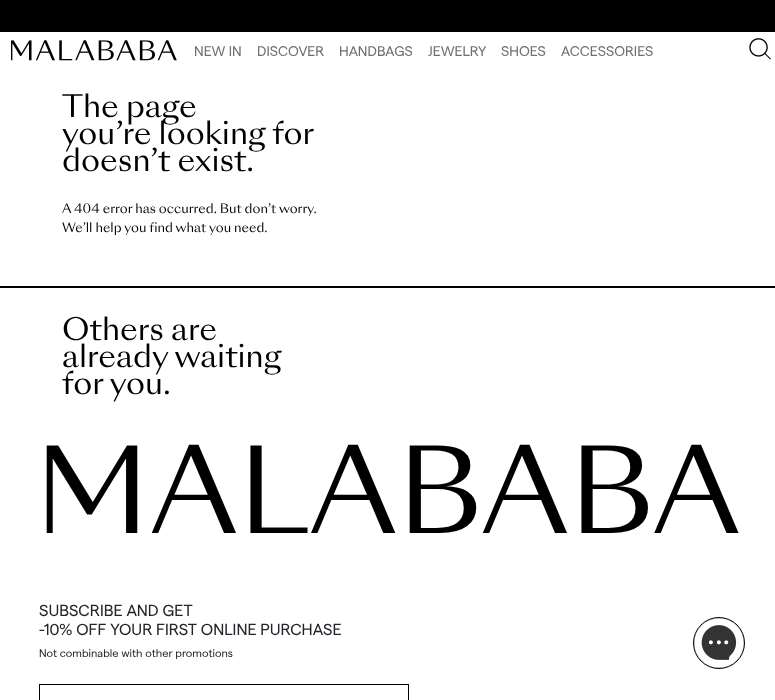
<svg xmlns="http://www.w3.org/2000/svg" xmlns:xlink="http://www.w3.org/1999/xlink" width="775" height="700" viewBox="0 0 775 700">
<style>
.cls-1{font:14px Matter;fill:#706f6f}
.cls-2{font:30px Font;fill:#000000}
.cls-3{font:12.5px Font;fill:#000000}
.cls-4{font:115.5px Font;fill:#000000}
</style>
<rect width="100%" height="100%" fill="#ffffff"/>
<rect fill="#000000" x="0" y="0" width="775" height="32"/>
<image xlink:href="image0.png" x="11" y="40" width="166" height="21"/>
<image xlink:href="image1.png" x="749" y="38" width="22" height="22"/>
<rect fill="#000000" x="0" y="286" width="775" height="2"/>
<image xlink:href="image2.png" x="39" y="604" width="370" height="96"/>
<circle fill="none" stroke="#000000" cx="719" cy="643" r="25.5"/>
<image xlink:href="image3.png" x="694" y="618" width="50" height="50"/>
<text class="cls-1" x="194" y="56">NEW IN</text>
<text class="cls-1" x="257" y="56">DISCOVER</text>
<text class="cls-1" x="339" y="56">HANDBAGS</text>
<text class="cls-1" x="428" y="56">JEWELRY</text>
<text class="cls-1" x="501" y="56">SHOES</text>
<text class="cls-1" x="561" y="56">ACCESSORIES</text>
<text class="cls-2"><tspan x="62" y="117">The page</tspan><tspan x="62" y="144">you’re looking for</tspan><tspan x="62" y="171">doesn’t exist.</tspan></text>
<text class="cls-3"><tspan x="62" y="213">A 404 error has occurred. But don’t worry.</tspan><tspan x="62" y="232">We’ll help you find what you need.</tspan></text>
<text class="cls-2"><tspan x="62" y="340">Others are</tspan><tspan x="62" y="367">already waiting</tspan><tspan x="62" y="394">for you.</tspan></text>
<text class="cls-4" x="34" y="533">MALABABA</text>
</svg>
